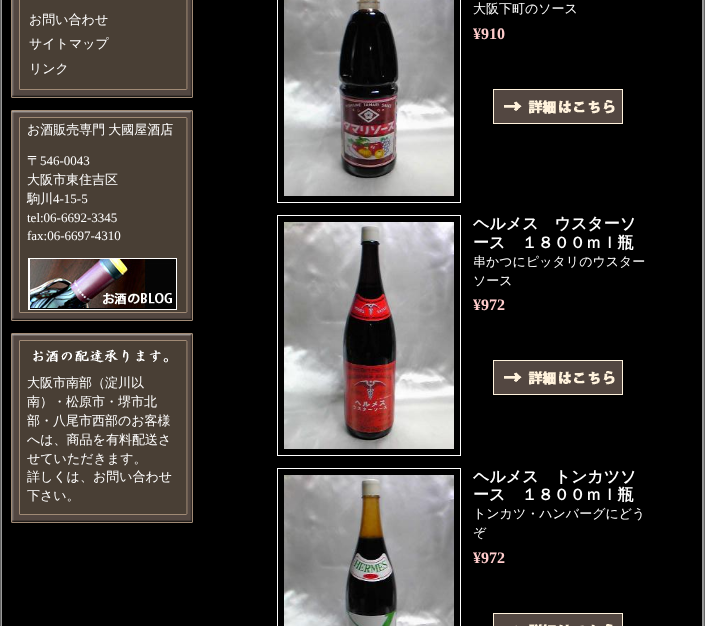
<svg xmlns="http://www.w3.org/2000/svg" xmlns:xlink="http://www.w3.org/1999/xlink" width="705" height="626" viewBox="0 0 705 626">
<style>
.cls-1{font:500 13px WenQuanYi Zen Hei;fill:#ffffff}
.cls-2{font:13px Liberation Serif;fill:#ffffff}
.cls-3{font:bold 16px Liberation Serif;fill:#ffcccc}
.cls-4{font:bold 16px WenQuanYi Zen Hei;fill:#ffffff}
</style>
<rect width="100%" height="100%" fill="#666666"/>
<rect fill="#000000" x="2" y="0" width="700" height="626"/>
<rect fill="#999999" x="702" y="0" width="2" height="626"/>
<rect fill="#999999" x="1" y="0" width="1" height="626"/>
<image xlink:href="image0.png" x="11" y="0" width="182" height="89"/>
<image xlink:href="image1.png" x="11" y="89" width="182" height="9"/>
<image xlink:href="image2.png" x="11" y="118" width="182" height="194"/>
<image xlink:href="image3.png" x="11" y="110" width="182" height="8"/>
<image xlink:href="image4.png" x="28" y="258" width="149" height="52"/>
<image xlink:href="image1.png" x="11" y="312" width="182" height="9"/>
<image xlink:href="image5.png" x="11" y="341" width="182" height="173"/>
<image xlink:href="image3.png" x="11" y="333" width="182" height="8"/>
<image xlink:href="image6.png" x="33" y="349" width="135" height="14"/>
<image xlink:href="image1.png" x="11" y="514" width="182" height="9"/>
<rect fill="none" stroke="#ffffff" x="277.5" y="-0.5" width="183" height="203"/>
<image xlink:href="image7.png" x="284" y="0" width="170" height="196"/>
<image xlink:href="image8.png" x="493" y="89" width="130" height="35"/>
<rect fill="none" stroke="#ffffff" x="277.5" y="215.5" width="183" height="240"/>
<image xlink:href="image9.png" x="284" y="222" width="170" height="227"/>
<image xlink:href="image8.png" x="493" y="360" width="130" height="35"/>
<rect fill="none" stroke="#ffffff" x="277.5" y="468.5" width="183" height="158"/>
<image xlink:href="image10.png" x="284" y="475" width="170" height="151"/>
<image xlink:href="image11.png" x="493" y="613" width="130" height="13"/>
<text class="cls-1"><tspan x="29" y="24">お問い合わせ</tspan><tspan x="29" y="48">サイトマップ</tspan><tspan x="29" y="73">リンク</tspan></text>
<text class="cls-1" x="27" y="134" word-spacing="-1">お酒販売専門 大國屋酒店</text>
<text class="cls-1" x="27" y="165">〒</text>
<text class="cls-2" x="40" y="165">546-0043</text>
<text class="cls-1"><tspan x="27" y="184">大阪市東住吉区</tspan><tspan x="27" y="203">駒川</tspan></text>
<text class="cls-2" x="53" y="203">4-15-5</text>
<text class="cls-2"><tspan x="27" y="222">tel:06-6692-3345</tspan><tspan x="27" y="240">fax:06-6697-4310</tspan></text>
<text class="cls-1"><tspan x="27" y="387">大阪市南部（淀川以</tspan><tspan x="27" y="406">南）・松原市・堺市北</tspan><tspan x="27" y="425">部・八尾市西部のお客様</tspan><tspan x="27" y="444">へは、商品を有料配送さ</tspan><tspan x="27" y="463">せていただきます。</tspan><tspan x="27" y="481">詳しくは、お問い合わせ</tspan><tspan x="27" y="500">下さい。</tspan></text>
<text class="cls-1" x="473" y="13">大阪下町のソース</text>
<text class="cls-3" x="473" y="39">¥910</text>
<text class="cls-4"><tspan x="473" y="229">ヘルメス　ウスターソ</tspan><tspan x="473" y="248">ース　１８００ｍｌ瓶</tspan></text>
<text class="cls-1"><tspan x="473" y="266">串かつにピッタリのウスター</tspan><tspan x="473" y="285">ソース</tspan></text>
<text class="cls-3" x="473" y="310">¥972</text>
<text class="cls-4"><tspan x="473" y="482">ヘルメス　トンカツソ</tspan><tspan x="473" y="500">ース　１８００ｍｌ瓶</tspan></text>
<text class="cls-1"><tspan x="473" y="518">トンカツ・ハンバーグにどう</tspan><tspan x="473" y="537">ぞ</tspan></text>
<text class="cls-3" x="473" y="563">¥972</text>
</svg>
